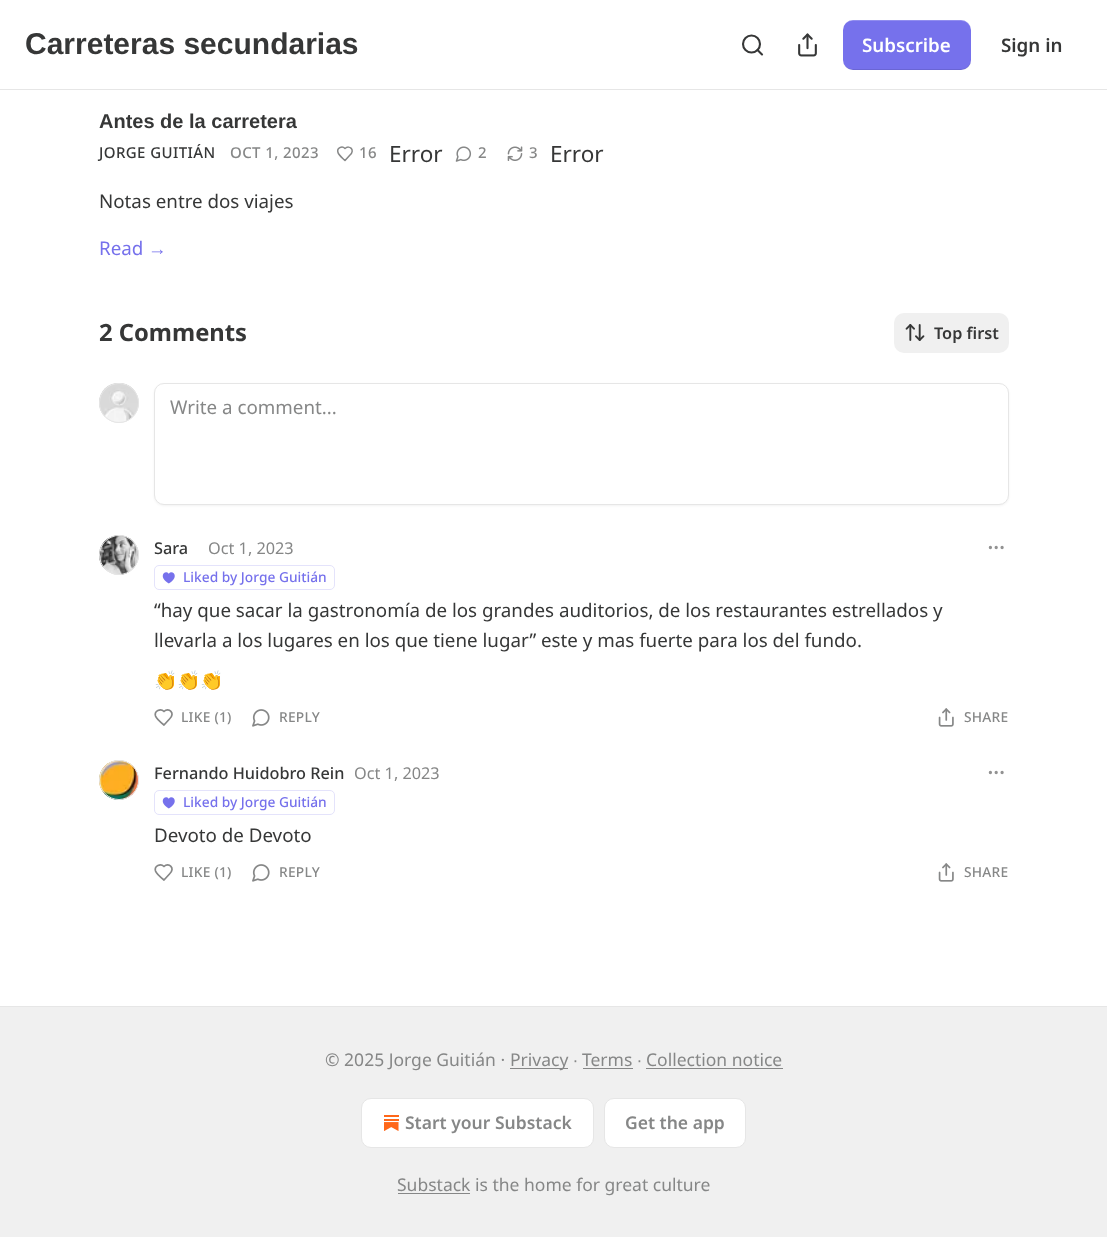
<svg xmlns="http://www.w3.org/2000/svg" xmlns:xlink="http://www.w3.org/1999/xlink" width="1107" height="1237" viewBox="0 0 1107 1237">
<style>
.cls-1{font:bold 30px Liberation Sans;fill:#363737}
.cls-2{font:600 18.75px Noto Sans;fill:#ffffff}
.cls-3{font:600 18.75px Noto Sans;fill:#363737}
.cls-4{font:bold 20px Liberation Sans;fill:#363737}
.cls-5{font:500 15px Noto Sans;letter-spacing:0.4px;fill:#363737}
.cls-6{font:500 15px Noto Sans;letter-spacing:0.4px;fill:#868787}
.cls-7{font:22.5px Noto Sans;fill:#363737}
.cls-8{font:18.75px Noto Sans;fill:#363737}
.cls-9{font:18.75px Noto Sans;fill:#7671ec}
.cls-10{font:18.75px Liberation Sans;fill:#7671ec}
.cls-11{font:bold 23.75px Noto Sans;fill:#363737}
.cls-12{font:600 16.25px Noto Sans;fill:#363737}
.cls-13{font:18.75px Noto Sans;fill:#868787}
.cls-14{font:500 16.25px Noto Sans;fill:#363737}
.cls-15{font:16.25px Noto Sans;fill:#868787}
.cls-16{font:500 13.75px Noto Sans;fill:#7671ec}
.cls-17{font:18.75px Noto Color Emoji;fill:#363737}
.cls-18{font:500 13.75px Noto Sans;letter-spacing:0.25px;fill:#868787}
.cls-19{font:17.5px Noto Sans;fill:#868787}
.cls-20{font:17.5px Liberation Sans;fill:#868787}
.cls-21{font:600 17.5px Noto Sans;fill:#868787}
</style>
<defs>
<clipPath id="clip1"><rect x="154" y="595" width="855" height="100"/></clipPath>
</defs>
<rect width="100%" height="100%" fill="#ffffff"/>
<rect fill="#e6e6e6" x="0" y="89" width="1107" height="1"/>
<circle fill="none" stroke="#363737" stroke-width="2.1" cx="751.5" cy="44" r="8.5"/>
<path fill="none" stroke="#363737" stroke-width="2.1" stroke-linecap="round" stroke-linejoin="round" d="M762 54.5L757.5 50"/>
<image xlink:href="image0.png" x="798" y="33" width="19" height="24"/>
<rect fill="#7671ec" x="843" y="20" width="128" height="50" rx="10"/>
<path fill="#000000" fill-opacity="0.1" d="M844 65C846 68 849 70 853 70H961C967 70 971 66 971 60V59C971 64 967 69 961 69H852C849 69 846 67 844 65Z"/>
<path fill="#ffffff" fill-opacity="0.2" d="M852 21H961C967 21 971 26 971 31V30C971 24 967 20 961 20H853C849 20 846 22 844 25C846 23 849 21 852 21Z"/>
<path fill="none" stroke="#868787" stroke-width="1.5" stroke-linecap="round" stroke-linejoin="round" d="M350 155C355.5 150 349.5 144.5 345 148.5C342 145.5 336.5 148 338 152.5C338.5 155 343 158.5 345 160.5Z"/>
<image xlink:href="image1.png" x="455" y="146" width="17" height="16"/>
<image xlink:href="image2.png" x="507" y="146" width="16" height="15"/>
<rect fill="#f0f0f0" x="894" y="313" width="115" height="40" rx="10"/>
<image xlink:href="image3.png" x="905" y="324" width="20" height="17"/>
<circle fill="none" stroke="#e6e6e6" cx="119" cy="403" r="19.5"/>
<image xlink:href="image4.png" x="99" y="383" width="40" height="39"/>
<circle fill="none" stroke="#e6e6e6" cx="119" cy="403" r="19.5"/>
<rect fill="#000000" fill-opacity="0.05" filter="blur(1px)" x="154" y="384" width="855" height="122" rx="10"/>
<rect fill="#ffffff" stroke="#e6e6e6" x="154.5" y="383.5" width="854" height="121" rx="9.5"/>
<circle fill="none" stroke="#e6e6e6" cx="119" cy="555" r="19.5"/>
<image xlink:href="image5.png" x="99" y="535" width="40" height="40"/>
<circle fill="none" stroke="#e6e6e6" cx="119" cy="555" r="19.5"/>
<rect fill="none" stroke="#e4e3fb" x="154.5" y="565.5" width="180" height="24" rx="4.5"/>
<image xlink:href="image6.png" x="162" y="572" width="13" height="12"/>
<circle fill="none" stroke="#929292" stroke-width="1.7" cx="996.2" cy="547.5" r="0.8"/>
<circle fill="none" stroke="#929292" stroke-width="1.7" cx="1002.1" cy="547.5" r="0.8"/>
<circle fill="none" stroke="#929292" stroke-width="1.7" cx="990.4" cy="547.5" r="0.8"/>
<path fill="none" stroke="#868787" stroke-width="1.7" stroke-linecap="round" stroke-linejoin="round" d="M169.5 719C176 713 168.5 707 164 711.5C160.5 708 154 711 155.5 716C156.5 719 161.5 723 164 725Z"/>
<image xlink:href="image7.png" x="252" y="709" width="18" height="18"/>
<image xlink:href="image8.png" x="938" y="708" width="16" height="19"/>
<circle fill="none" stroke="#e6e6e6" cx="119" cy="780" r="19.5"/>
<image xlink:href="image9.png" x="99" y="760" width="40" height="40"/>
<circle fill="none" stroke="#e6e6e6" cx="119" cy="780" r="19.5"/>
<rect fill="none" stroke="#e4e3fb" x="154.5" y="790.5" width="180" height="24" rx="4.5"/>
<image xlink:href="image6.png" x="162" y="797" width="13" height="12"/>
<circle fill="none" stroke="#929292" stroke-width="1.7" cx="996.2" cy="772.5" r="0.8"/>
<circle fill="none" stroke="#929292" stroke-width="1.7" cx="1002.1" cy="772.5" r="0.8"/>
<circle fill="none" stroke="#929292" stroke-width="1.7" cx="990.4" cy="772.5" r="0.8"/>
<path fill="none" stroke="#868787" stroke-width="1.7" stroke-linecap="round" stroke-linejoin="round" d="M169.5 874C176 868 168.5 862 164 866.5C160.5 863 154 866 155.5 871C156.5 874 161.5 878 164 880Z"/>
<image xlink:href="image7.png" x="252" y="864" width="18" height="18"/>
<image xlink:href="image8.png" x="938" y="863" width="16" height="19"/>
<rect fill="#f0f0f0" x="0" y="1007" width="1107" height="230"/>
<rect fill="#e6e6e6" x="0" y="1006" width="1107" height="1"/>
<rect fill="#868787" x="510" y="1068" width="58" height="1"/>
<rect fill="#868787" x="583" y="1068" width="50" height="1"/>
<rect fill="#868787" x="646" y="1068" width="137" height="1"/>
<rect fill="#ffffff" stroke="#e6e6e6" x="361.5" y="1098.5" width="232" height="49" rx="9.5"/>
<image xlink:href="image10.png" x="384" y="1115" width="15" height="16"/>
<rect fill="#ffffff" stroke="#e6e6e6" x="604.5" y="1098.5" width="141" height="49" rx="9.5"/>
<rect fill="#868787" x="398" y="1193" width="72" height="1"/>
<text class="cls-1" x="25" y="54">Carreteras secundarias</text>
<text class="cls-2" x="862" y="52">Subscribe</text>
<text class="cls-3" x="1001" y="52">Sign in</text>
<text class="cls-4" x="99" y="128">Antes de la carretera</text>
<text class="cls-5" x="99" y="158">JORGE GUITIÁN</text>
<text class="cls-6" x="230" y="158">OCT 1, 2023</text>
<text class="cls-6" x="359" y="158">16</text>
<text class="cls-7" x="389" y="162">Error</text>
<text class="cls-6" x="478" y="158">2</text>
<text class="cls-6" x="529" y="158">3</text>
<text class="cls-7" x="550" y="162">Error</text>
<text class="cls-8" x="99" y="208">Notas entre dos viajes</text>
<text class="cls-9" x="99" y="255">Read</text>
<text class="cls-10" x="148" y="255">→</text>
<text class="cls-11" x="99" y="341">2 Comments</text>
<text class="cls-12" x="934" y="339">Top first</text>
<text class="cls-13" x="170" y="414">Write a comment...</text>
<text class="cls-14" x="154" y="554">Sara</text>
<text class="cls-15" x="208" y="554">Oct 1, 2023</text>
<text class="cls-16" x="183" y="582">Liked by Jorge Guitián</text>
<text class="cls-8"><tspan x="154" y="617">“hay que sacar la gastronomía de los grandes auditorios, de los restaurantes estrellados y</tspan><tspan x="154" y="647">llevarla a los lugares en los que tiene lugar” este y mas fuerte para los del fundo.</tspan></text>
<g clip-path="url(#clip1)">
<text class="cls-17" x="154" y="687">👏👏👏</text>
</g>
<text class="cls-18" x="181" y="722">LIKE (1)</text>
<text class="cls-18" x="279" y="722">REPLY</text>
<text class="cls-18" x="964" y="722">SHARE</text>
<text class="cls-14" x="154" y="779">Fernando Huidobro Rein</text>
<text class="cls-15" x="354" y="779">Oct 1, 2023</text>
<text class="cls-16" x="183" y="807">Liked by Jorge Guitián</text>
<text class="cls-8" x="154" y="842">Devoto de Devoto</text>
<text class="cls-18" x="181" y="877">LIKE (1)</text>
<text class="cls-18" x="279" y="877">REPLY</text>
<text class="cls-18" x="964" y="877">SHARE</text>
<text class="cls-19" x="325" y="1066">© 2025 Jorge Guitián ·</text>
<text class="cls-19" x="510" y="1066">Privacy</text>
<text class="cls-20" x="573" y="1066">∙</text>
<text class="cls-19" x="582" y="1066">Terms</text>
<text class="cls-20" x="637" y="1066">∙</text>
<text class="cls-19" x="646" y="1066">Collection notice</text>
<text class="cls-21" x="405" y="1129">Start your Substack</text>
<text class="cls-21" x="625" y="1129">Get the app</text>
<text class="cls-19" x="397" y="1191">Substack is the home for great culture</text>
</svg>
